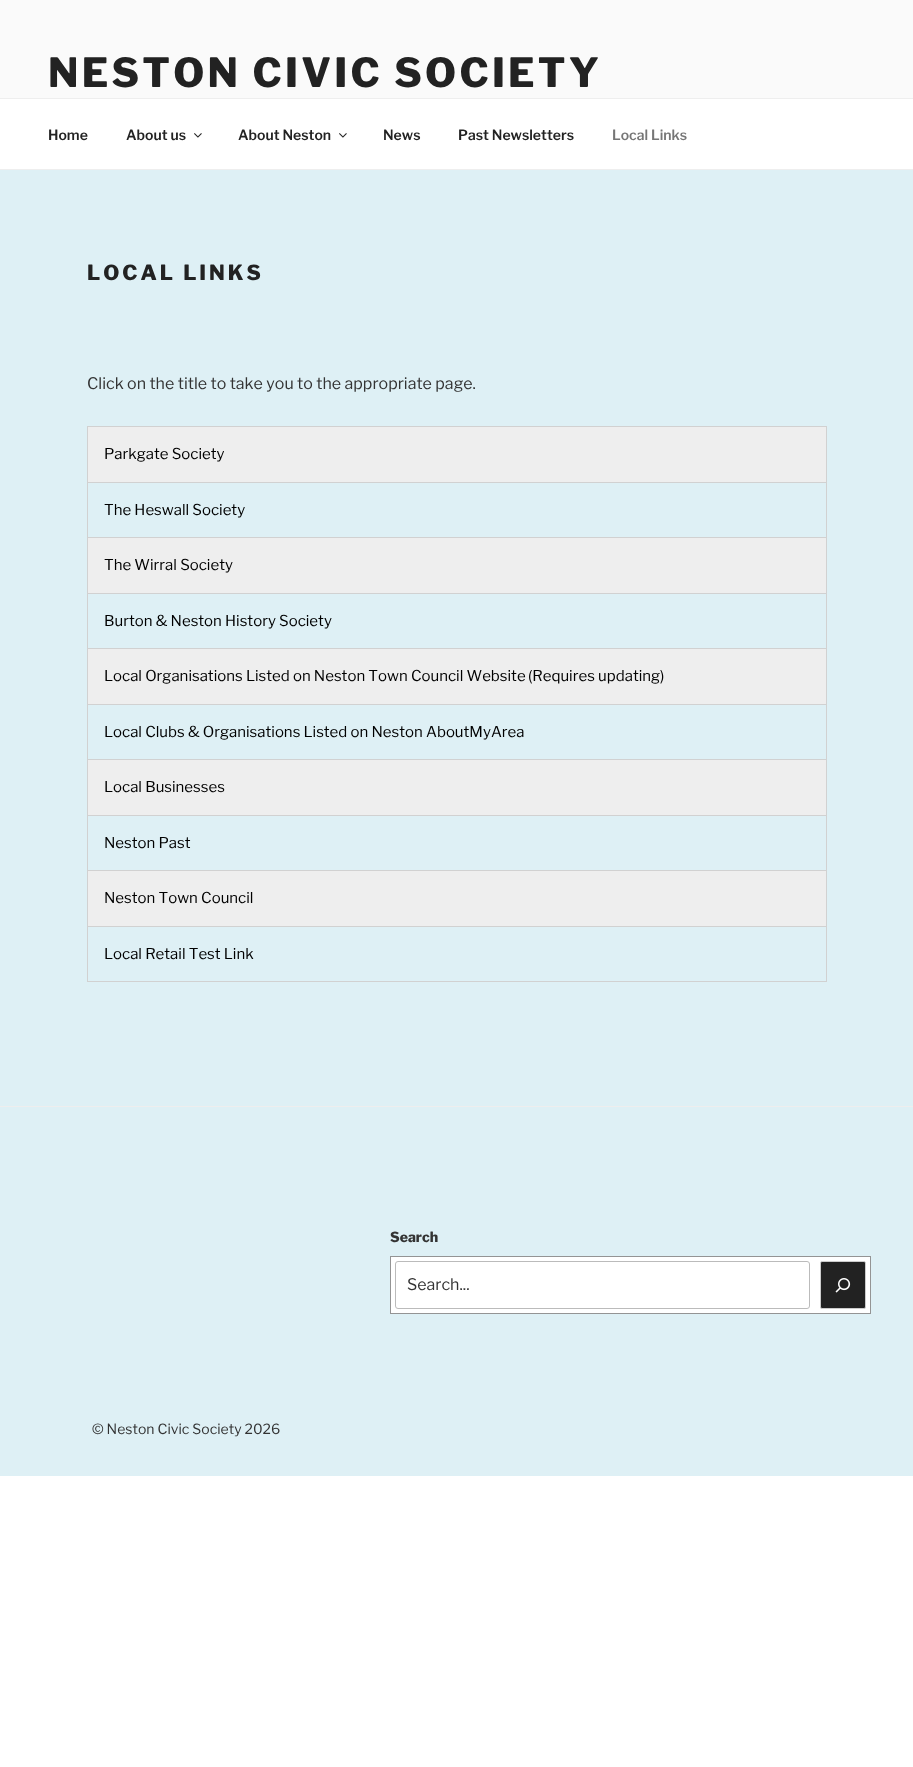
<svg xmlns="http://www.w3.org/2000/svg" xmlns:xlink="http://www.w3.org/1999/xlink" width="913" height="1767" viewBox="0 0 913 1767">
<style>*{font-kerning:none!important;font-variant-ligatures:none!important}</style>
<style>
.cls-1{font:100 40px Libre Franklin;letter-spacing:3.25px;fill:#222222}
.cls-2{font:100 14px 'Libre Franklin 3';fill:#222222}
.cls-3{font:100 14px 'Libre Franklin 3';fill:#767676}
.cls-4{font:100 20.75px Libre Franklin;letter-spacing:3px;fill:#222222}
.cls-5{font:100 16px 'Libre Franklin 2';fill:#333333}
.cls-6{font:100 15px 'Libre Franklin 2';fill:#000000}
.cls-7{font:100 14px Libre Franklin;fill:#333333}
.cls-8{font:100 14px 'Libre Franklin 2';fill:#333333}
</style>
<rect width="100%" height="100%" fill="#ffffff"/>
<rect fill="#fafafa" x="0" y="0" width="913" height="98"/>
<rect fill="#eeeeee" x="0" y="98" width="913" height="1"/>
<rect fill="#eeeeee" x="0" y="169" width="913" height="1"/>
<image xlink:href="image0.png" x="194" y="133" width="8" height="5"/>
<image xlink:href="image0.png" x="339" y="133" width="8" height="5"/>
<rect fill="#def0f5" x="0" y="170" width="913" height="1306"/>
<rect fill="#d1d1d1" x="87" y="426" width="740" height="1"/>
<rect fill="#d1d1d1" x="826" y="426" width="1" height="500"/>
<rect fill="#d1d1d1" x="87" y="426" width="1" height="556"/>
<rect fill="#eeeeee" x="88" y="427" width="738" height="55"/>
<rect fill="#d1d1d1" x="87" y="482" width="740" height="1"/>
<rect fill="#eeeeee" x="88" y="538" width="738" height="55"/>
<rect fill="#d1d1d1" x="87" y="537" width="740" height="1"/>
<rect fill="#d1d1d1" x="87" y="593" width="740" height="1"/>
<rect fill="#eeeeee" x="88" y="649" width="738" height="55"/>
<rect fill="#d1d1d1" x="87" y="648" width="740" height="1"/>
<rect fill="#d1d1d1" x="87" y="704" width="740" height="1"/>
<rect fill="#eeeeee" x="88" y="760" width="738" height="55"/>
<rect fill="#d1d1d1" x="87" y="759" width="740" height="1"/>
<rect fill="#d1d1d1" x="87" y="815" width="740" height="1"/>
<rect fill="#eeeeee" x="88" y="871" width="738" height="55"/>
<rect fill="#d1d1d1" x="87" y="870" width="740" height="1"/>
<rect fill="#d1d1d1" x="87" y="926" width="740" height="1"/>
<rect fill="#d1d1d1" x="826" y="926" width="1" height="56"/>
<rect fill="#d1d1d1" x="87" y="981" width="740" height="1"/>
<rect fill="#eeeeee" x="0" y="1106" width="913" height="1"/>
<rect fill="#ffffff" stroke="#949494" x="390.5" y="1256.5" width="480" height="57"/>
<rect fill="none" stroke="#bbbbbb" x="395.5" y="1261.5" width="414" height="47" rx="2.5"/>
<rect fill="#222222" stroke="#cccccc" x="820.5" y="1261.5" width="45" height="47" rx="1.5"/>
<image xlink:href="image1.png" x="835" y="1278" width="16" height="15"/>
<text class="cls-1" x="48" y="87">NESTON CIVIC SOCIETY</text>
<text class="cls-2" x="48" y="140">Home</text>
<text class="cls-2" x="126" y="140">About us</text>
<text class="cls-2" x="238" y="140">About Neston</text>
<text class="cls-2" x="383" y="140">News</text>
<text class="cls-2" x="458" y="140">Past Newsletters</text>
<text class="cls-3" x="612" y="140">Local Links</text>
<text class="cls-4" x="87" y="280">LOCAL LINKS</text>
<text class="cls-5" x="87" y="389">Click on the title to take you to the appropriate page.</text>
<text class="cls-6" x="104" y="459">Parkgate Society</text>
<text class="cls-6" x="104" y="515">The Heswall Society</text>
<text class="cls-6" x="104" y="570">The Wirral Society</text>
<text class="cls-6" x="104" y="626">Burton &amp; Neston History Society</text>
<text class="cls-6" x="104" y="681">Local Organisations Listed on Neston Town Council Website</text>
<text class="cls-6" x="528" y="681">(Requires updating)</text>
<text class="cls-6" x="104" y="737">Local Clubs &amp; Organisations Listed on Neston AboutMyArea</text>
<text class="cls-6" x="104" y="792">Local Businesses</text>
<text class="cls-6" x="104" y="848">Neston Past</text>
<text class="cls-6" x="104" y="903">Neston Town Council</text>
<text class="cls-6" x="104" y="959">Local Retail Test Link</text>
<text class="cls-7" x="390" y="1242">Search</text>
<text class="cls-5" x="407" y="1290">Search...</text>
<text class="cls-8" x="92" y="1434">© Neston Civic Society 2026</text>
</svg>
